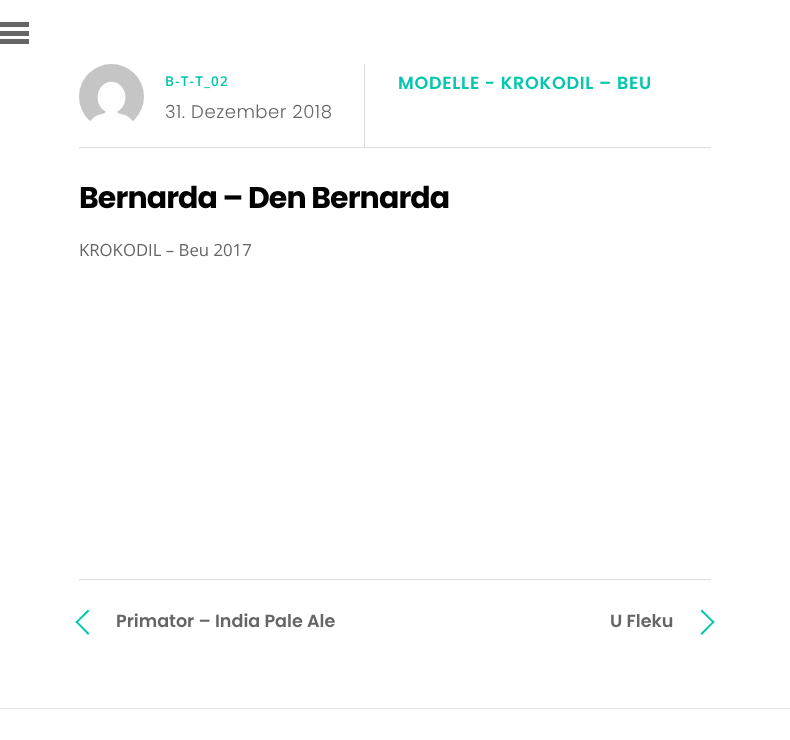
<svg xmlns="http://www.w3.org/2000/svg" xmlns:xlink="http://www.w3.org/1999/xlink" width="790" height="740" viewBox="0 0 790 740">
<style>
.cls-1{font:600 13.5px Open Sans;letter-spacing:1.25px;fill:#03c6ad}
.cls-2{font:300 18.1px Poppins;letter-spacing:0.5px;fill:#656565}
.cls-3{font:600 17.5px Poppins;letter-spacing:0.75px;fill:#03c6ad}
.cls-4{font:bold 30px Poppins;letter-spacing:-0.9px;fill:#000000}
.cls-5{font:16.75px Open Sans;fill:#656565}
.cls-6{font:600 17.6px Poppins;fill:#656565}
</style>
<rect width="100%" height="100%" fill="#ffffff"/>
<rect fill="#656565" x="0" y="39" width="29" height="5"/>
<rect fill="#656565" x="0" y="22" width="29" height="5"/>
<rect fill="#656565" x="0" y="31" width="29" height="5"/>
<rect fill="#dddddd" x="79" y="147" width="632" height="1"/>
<rect fill="#dddddd" x="364" y="64" width="1" height="83"/>
<image xlink:href="image0.png" x="79" y="64" width="65" height="57"/>
<rect fill="#dddddd" x="79" y="579" width="632" height="1"/>
<path fill="#03c6ad" d="M75.5 622L88 609.5L89.5 611L76.5 623.5Z"/>
<path fill="#03c6ad" d="M75.5 622L76.5 620.5L89.5 633.5L88 635Z"/>
<path fill="#03c6ad" d="M702 609.5L714.5 622L713.5 623.5L700.5 611Z"/>
<path fill="#03c6ad" d="M713.5 620.5L714.5 622L702 635L700.5 633.5Z"/>
<rect fill="#e6e6e6" x="0" y="708" width="790" height="1"/>
<text class="cls-1" x="165" y="86">B-T-T_02</text>
<text class="cls-2" x="165" y="118">31. Dezember 2018</text>
<text class="cls-3" x="398" y="89">MODELLE - KROKODIL – BEU</text>
<text class="cls-4" x="79" y="208">Bernarda – Den Bernarda</text>
<text class="cls-5" x="79" y="256">KROKODIL – Beu 2017</text>
<text class="cls-6" x="116" y="627">Primator – India Pale Ale</text>
<text class="cls-6" x="610" y="627">U Fleku</text>
</svg>
